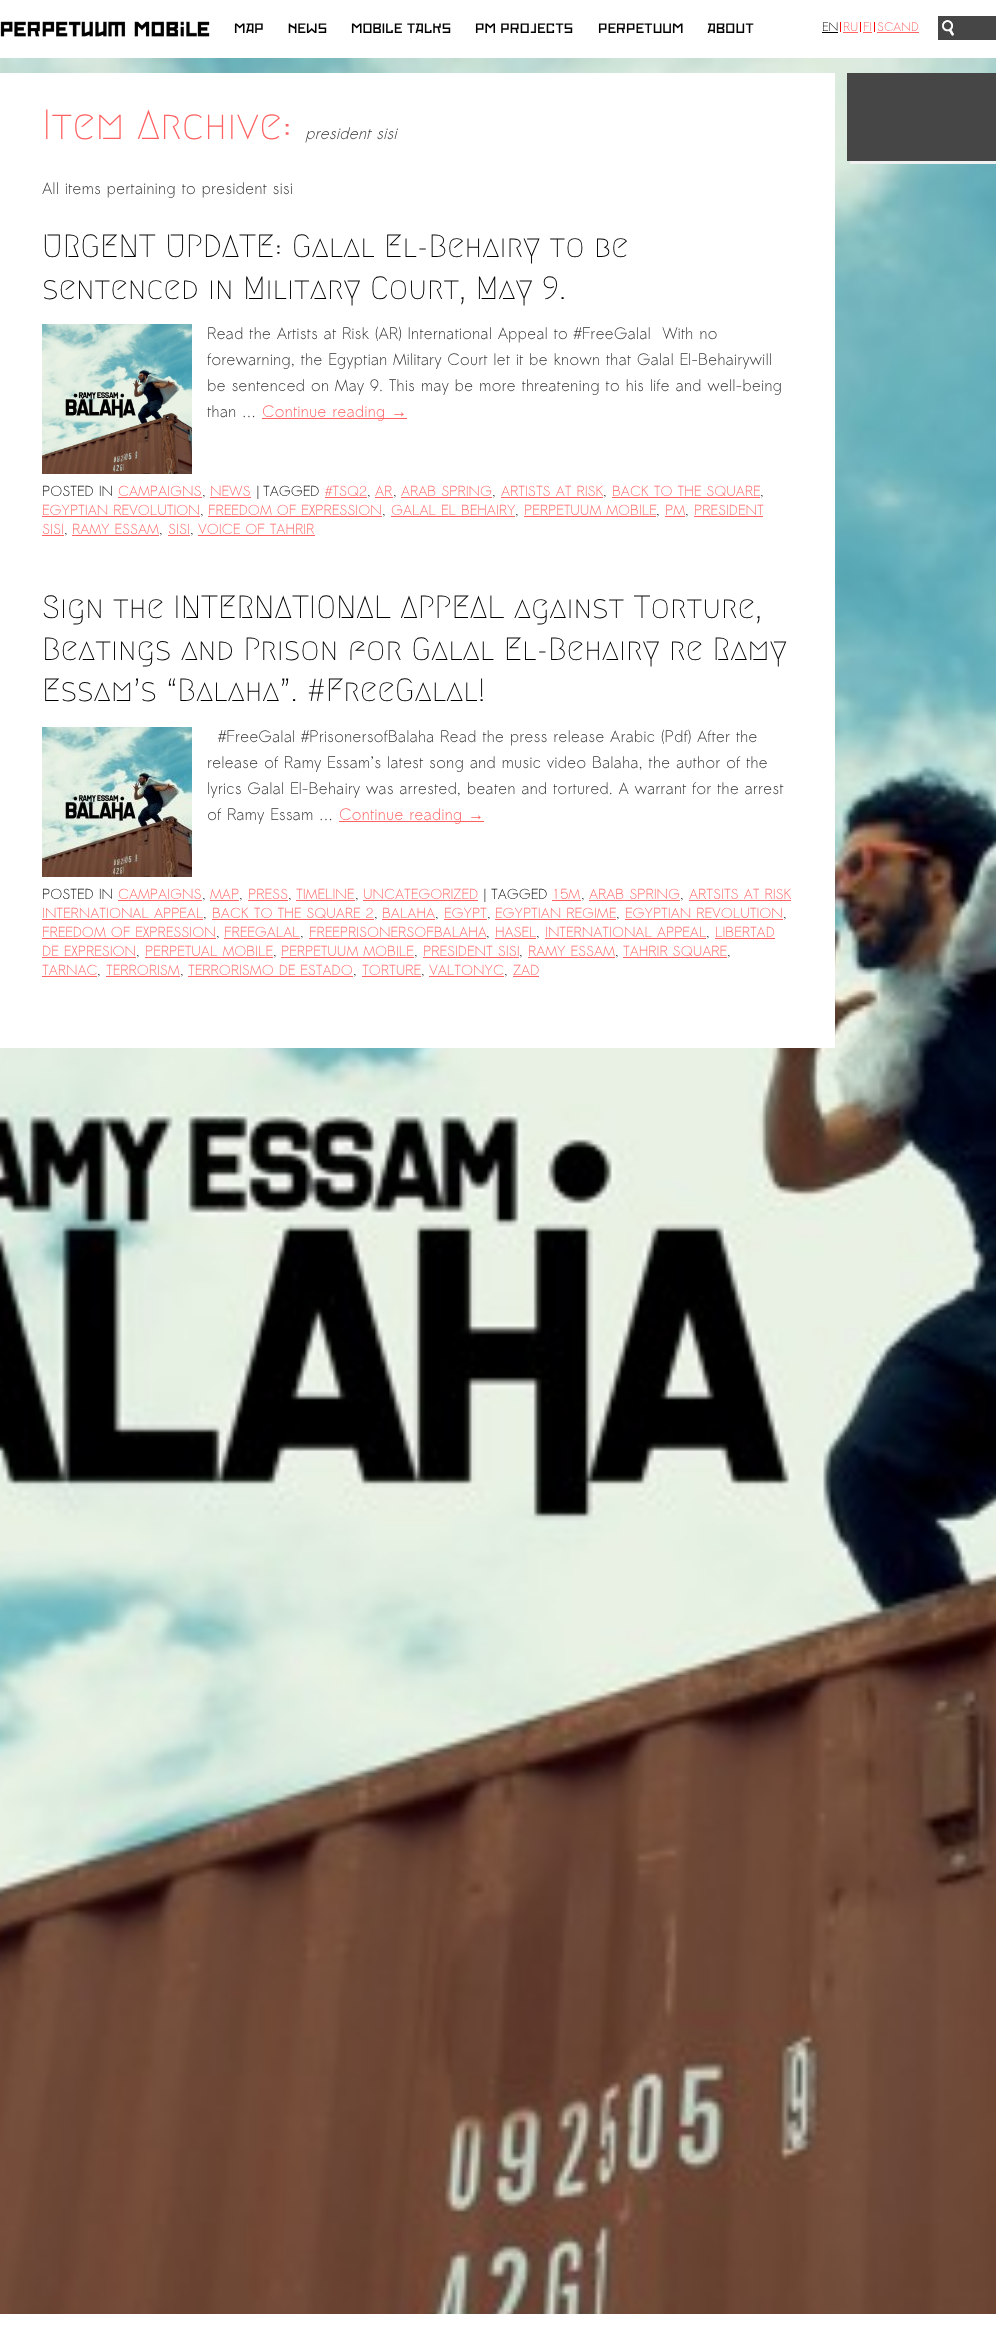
<svg xmlns="http://www.w3.org/2000/svg" xmlns:xlink="http://www.w3.org/1999/xlink" width="996" height="2334" viewBox="0 0 996 2334">
<style>
.cls-1{font:300 12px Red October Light;fill:#000000}
.cls-2{font:12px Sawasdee;fill:#000000}
.cls-3{font:12px Sawasdee;fill:#ff6262}
.cls-4{font:500 42px Megrim;fill:#ff6262}
.cls-5{font:italic 16px Sawasdee;fill:#333333}
.cls-6{font:16px Sawasdee;fill:#333333}
.cls-7{font:500 32px Megrim;fill:#000000}
.cls-8{font:16px Sawasdee;fill:#ff6262}
.cls-9{font:16px Liberation Serif;fill:#ff6262}
.cls-10{font:14px Sawasdee;fill:#000000}
.cls-11{font:14px Sawasdee;fill:#ff6262}
.cls-12{font:14px Liberation Sans;fill:#777777}
</style>
<rect width="100%" height="100%" fill="#ffffff"/>
<image xlink:href="image0.png" x="0" y="21" width="210" height="16"/>
<rect fill="#000000" x="822" y="32" width="16" height="1"/>
<rect fill="#ff0000" x="840" y="22" width="1" height="10"/>
<rect fill="#ff6262" x="843" y="32" width="15" height="1"/>
<rect fill="#ff0000" x="860" y="22" width="1" height="10"/>
<rect fill="#ff6262" x="863" y="32" width="9" height="1"/>
<rect fill="#ff0000" x="874" y="22" width="1" height="10"/>
<rect fill="#ff6262" x="877" y="32" width="42" height="1"/>
<rect fill="#464646" x="954" y="16" width="42" height="24"/>
<image xlink:href="image1.png" x="938" y="16" width="16" height="24"/>
<image xlink:href="image2.png" x="0" y="58" width="996" height="2256"/>
<rect fill="#ffffff" x="0" y="73" width="835" height="975"/>
<image xlink:href="image3.png" x="42" y="324" width="150" height="150"/>
<rect fill="#ff6262" x="262" y="418" width="145" height="1"/>
<rect fill="#ff6262" x="118" y="497" width="84" height="1"/>
<rect fill="#ff6262" x="210" y="497" width="41" height="1"/>
<rect fill="#ff6262" x="325" y="497" width="42" height="1"/>
<rect fill="#ff6262" x="375" y="497" width="18" height="1"/>
<rect fill="#ff6262" x="401" y="497" width="91" height="1"/>
<rect fill="#ff6262" x="501" y="497" width="102" height="1"/>
<rect fill="#ff6262" x="612" y="497" width="148" height="1"/>
<rect fill="#ff6262" x="42" y="516" width="158" height="1"/>
<rect fill="#ff6262" x="208" y="516" width="174" height="1"/>
<rect fill="#ff6262" x="391" y="516" width="124" height="1"/>
<rect fill="#ff6262" x="524" y="516" width="132" height="1"/>
<rect fill="#ff6262" x="665" y="516" width="20" height="1"/>
<rect fill="#ff6262" x="694" y="516" width="69" height="1"/>
<rect fill="#ff6262" x="42" y="535" width="22" height="1"/>
<rect fill="#ff6262" x="72" y="535" width="87" height="1"/>
<rect fill="#ff6262" x="168" y="535" width="22" height="1"/>
<rect fill="#ff6262" x="198" y="535" width="117" height="1"/>
<image xlink:href="image4.png" x="42" y="727" width="150" height="150"/>
<rect fill="#ff6262" x="339" y="821" width="145" height="1"/>
<rect fill="#ff6262" x="118" y="900" width="84" height="1"/>
<rect fill="#ff6262" x="210" y="900" width="29" height="1"/>
<rect fill="#ff6262" x="248" y="900" width="40" height="1"/>
<rect fill="#ff6262" x="296" y="900" width="59" height="1"/>
<rect fill="#ff6262" x="363" y="900" width="115" height="1"/>
<rect fill="#ff6262" x="552" y="900" width="29" height="1"/>
<rect fill="#ff6262" x="589" y="900" width="91" height="1"/>
<rect fill="#ff6262" x="689" y="900" width="102" height="1"/>
<rect fill="#ff6262" x="42" y="919" width="161" height="1"/>
<rect fill="#ff6262" x="212" y="919" width="162" height="1"/>
<rect fill="#ff6262" x="382" y="919" width="53" height="1"/>
<rect fill="#ff6262" x="444" y="919" width="43" height="1"/>
<rect fill="#ff6262" x="495" y="919" width="121" height="1"/>
<rect fill="#ff6262" x="625" y="919" width="158" height="1"/>
<rect fill="#ff6262" x="42" y="938" width="174" height="1"/>
<rect fill="#ff6262" x="224" y="938" width="76" height="1"/>
<rect fill="#ff6262" x="309" y="938" width="177" height="1"/>
<rect fill="#ff6262" x="495" y="938" width="41" height="1"/>
<rect fill="#ff6262" x="545" y="938" width="161" height="1"/>
<rect fill="#ff6262" x="715" y="938" width="60" height="1"/>
<rect fill="#ff6262" x="42" y="957" width="94" height="1"/>
<rect fill="#ff6262" x="145" y="957" width="128" height="1"/>
<rect fill="#ff6262" x="281" y="957" width="133" height="1"/>
<rect fill="#ff6262" x="423" y="957" width="96" height="1"/>
<rect fill="#ff6262" x="528" y="957" width="87" height="1"/>
<rect fill="#ff6262" x="623" y="957" width="104" height="1"/>
<rect fill="#ff6262" x="42" y="976" width="55" height="1"/>
<rect fill="#ff6262" x="106" y="976" width="74" height="1"/>
<rect fill="#ff6262" x="188" y="976" width="165" height="1"/>
<rect fill="#ff6262" x="362" y="976" width="59" height="1"/>
<rect fill="#ff6262" x="429" y="976" width="75" height="1"/>
<rect fill="#ff6262" x="513" y="976" width="26" height="1"/>
<path fill="#f0f0f0" d="M850 161V164H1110V76H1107V161Z"/>
<rect fill="#464646" x="847" y="73" width="149" height="88"/>
<text class="cls-1" x="234" y="33">MAP</text>
<text class="cls-1" x="288" y="33">NEWS</text>
<text class="cls-1" x="351" y="33">MOBILE TALKS</text>
<text class="cls-1" x="475" y="33">PM PROJECTS</text>
<text class="cls-1" x="598" y="33">PERPETUUM</text>
<text class="cls-1" x="707" y="33">ABOUT</text>
<text class="cls-2" x="822" y="31">EN</text>
<text class="cls-3" x="843" y="31">RU</text>
<text class="cls-3" x="863" y="31">FI</text>
<text class="cls-3" x="877" y="31">SCAND</text>
<text class="cls-4" x="42" y="139">Item Archive:</text>
<text class="cls-5" x="305" y="139">president sisi</text>
<text class="cls-6" x="42" y="194">All items pertaining to president sisi</text>
<text class="cls-7"><tspan x="42" y="257">URGENT UPDATE: Galal El-Behairy to be</tspan><tspan x="42" y="299">sentenced in Military Court, May 9.</tspan></text>
<text class="cls-6" xml:space="preserve"><tspan x="207" y="339">Read the Artists at Risk (AR) International Appeal to #FreeGalal  With no</tspan><tspan x="207" y="365">forewarning, the Egyptian Military Court let it be known that Galal El-Behairywill</tspan><tspan x="207" y="391">be sentenced on May 9. This may be more threatening to his life and well-being</tspan><tspan x="207" y="417">than …</tspan></text>
<text class="cls-8" x="262" y="417">Continue reading</text>
<text class="cls-9" x="391" y="417">→</text>
<text class="cls-10" x="42" y="496">POSTED IN</text>
<text class="cls-11" x="118" y="496">CAMPAIGNS</text>
<text class="cls-10" x="202" y="496">,</text>
<text class="cls-11" x="210" y="496">NEWS</text>
<text class="cls-12" x="256" y="496">|</text>
<text class="cls-10" x="263" y="496">TAGGED</text>
<text class="cls-11" x="325" y="496">#TSQ2</text>
<text class="cls-10" x="367" y="496">,</text>
<text class="cls-11" x="375" y="496">AR</text>
<text class="cls-10" x="393" y="496">,</text>
<text class="cls-11" x="401" y="496">ARAB SPRING</text>
<text class="cls-10" x="492" y="496">,</text>
<text class="cls-11" x="501" y="496">ARTISTS AT RISK</text>
<text class="cls-10" x="603" y="496">,</text>
<text class="cls-11" x="612" y="496">BACK TO THE SQUARE</text>
<text class="cls-10" x="760" y="496">,</text>
<text class="cls-11" x="42" y="515">EGYPTIAN REVOLUTION</text>
<text class="cls-10" x="200" y="515">,</text>
<text class="cls-11" x="208" y="515">FREEDOM OF EXPRESSION</text>
<text class="cls-10" x="382" y="515">,</text>
<text class="cls-11" x="391" y="515">GALAL EL BEHAIRY</text>
<text class="cls-10" x="515" y="515">,</text>
<text class="cls-11" x="524" y="515">PERPETUUM MOBILE</text>
<text class="cls-10" x="656" y="515">,</text>
<text class="cls-11" x="665" y="515">PM</text>
<text class="cls-10" x="685" y="515">,</text>
<text class="cls-11" x="694" y="515">PRESIDENT</text>
<text class="cls-11" x="42" y="534">SISI</text>
<text class="cls-10" x="64" y="534">,</text>
<text class="cls-11" x="72" y="534">RAMY ESSAM</text>
<text class="cls-10" x="159" y="534">,</text>
<text class="cls-11" x="168" y="534">SISI</text>
<text class="cls-10" x="190" y="534">,</text>
<text class="cls-11" x="198" y="534">VOICE OF TAHRIR</text>
<text class="cls-7"><tspan x="42" y="618">Sign the INTERNATIONAL APPEAL against Torture,</tspan><tspan x="42" y="660">Beatings and Prison for Galal El-Behairy re Ramy</tspan><tspan x="42" y="701">Essam’s “Balaha”. #FreeGalal!</tspan></text>
<text class="cls-6" x="218" y="742">#FreeGalal #PrisonersofBalaha Read the press release Arabic (Pdf) After the</text>
<text class="cls-6"><tspan x="207" y="768">release of Ramy Essam’s latest song and music video Balaha, the author of the</tspan><tspan x="207" y="794">lyrics Galal El-Behairy was arrested, beaten and tortured. A warrant for the arrest</tspan><tspan x="207" y="820">of Ramy Essam …</tspan></text>
<text class="cls-8" x="339" y="820">Continue reading</text>
<text class="cls-9" x="468" y="820">→</text>
<text class="cls-10" x="42" y="899">POSTED IN</text>
<text class="cls-11" x="118" y="899">CAMPAIGNS</text>
<text class="cls-10" x="202" y="899">,</text>
<text class="cls-11" x="210" y="899">MAP</text>
<text class="cls-10" x="239" y="899">,</text>
<text class="cls-11" x="248" y="899">PRESS</text>
<text class="cls-10" x="288" y="899">,</text>
<text class="cls-11" x="296" y="899">TIMELINE</text>
<text class="cls-10" x="355" y="899">,</text>
<text class="cls-11" x="363" y="899">UNCATEGORIZED</text>
<text class="cls-12" x="483" y="899">|</text>
<text class="cls-10" x="491" y="899">TAGGED</text>
<text class="cls-11" x="552" y="899">15M</text>
<text class="cls-10" x="581" y="899">,</text>
<text class="cls-11" x="589" y="899">ARAB SPRING</text>
<text class="cls-10" x="680" y="899">,</text>
<text class="cls-11" x="689" y="899">ARTSITS AT RISK</text>
<text class="cls-11" x="42" y="918">INTERNATIONAL APPEAL</text>
<text class="cls-10" x="203" y="918">,</text>
<text class="cls-11" x="212" y="918">BACK TO THE SQUARE 2</text>
<text class="cls-10" x="374" y="918">,</text>
<text class="cls-11" x="382" y="918">BALAHA</text>
<text class="cls-10" x="435" y="918">,</text>
<text class="cls-11" x="444" y="918">EGYPT</text>
<text class="cls-10" x="487" y="918">,</text>
<text class="cls-11" x="495" y="918">EGYPTIAN REGIME</text>
<text class="cls-10" x="616" y="918">,</text>
<text class="cls-11" x="625" y="918">EGYPTIAN REVOLUTION</text>
<text class="cls-10" x="783" y="918">,</text>
<text class="cls-11" x="42" y="937">FREEDOM OF EXPRESSION</text>
<text class="cls-11" x="224" y="937">FREEGALAL</text>
<text class="cls-11" x="309" y="937">FREEPRISONERSOFBALAHA</text>
<text class="cls-11" x="495" y="937">HASEL</text>
<text class="cls-11" x="545" y="937">INTERNATIONAL APPEAL</text>
<text class="cls-11" x="715" y="937">LIBERTAD</text>
<text class="cls-10" x="216" y="937">,</text>
<text class="cls-10" x="300" y="937">,</text>
<text class="cls-10" x="486" y="937">,</text>
<text class="cls-10" x="536" y="937">,</text>
<text class="cls-10" x="706" y="937">,</text>
<text class="cls-11" x="42" y="956">DE EXPRESION</text>
<text class="cls-10" x="136" y="956">,</text>
<text class="cls-11" x="145" y="956">PERPETUAL MOBILE</text>
<text class="cls-10" x="273" y="956">,</text>
<text class="cls-11" x="281" y="956">PERPETUUM MOBILE</text>
<text class="cls-10" x="414" y="956">,</text>
<text class="cls-11" x="423" y="956">PRESIDENT SISI</text>
<text class="cls-10" x="519" y="956">,</text>
<text class="cls-11" x="528" y="956">RAMY ESSAM</text>
<text class="cls-10" x="615" y="956">,</text>
<text class="cls-11" x="623" y="956">TAHRIR SQUARE</text>
<text class="cls-10" x="727" y="956">,</text>
<text class="cls-11" x="42" y="975">TARNAC</text>
<text class="cls-11" x="106" y="975">TERRORISM</text>
<text class="cls-11" x="188" y="975">TERRORISMO DE ESTADO</text>
<text class="cls-11" x="362" y="975">TORTURE</text>
<text class="cls-11" x="429" y="975">VALTONYC</text>
<text class="cls-11" x="513" y="975">ZAD</text>
<text class="cls-10" x="97" y="975">,</text>
<text class="cls-10" x="180" y="975">,</text>
<text class="cls-10" x="353" y="975">,</text>
<text class="cls-10" x="421" y="975">,</text>
<text class="cls-10" x="504" y="975">,</text>
</svg>
